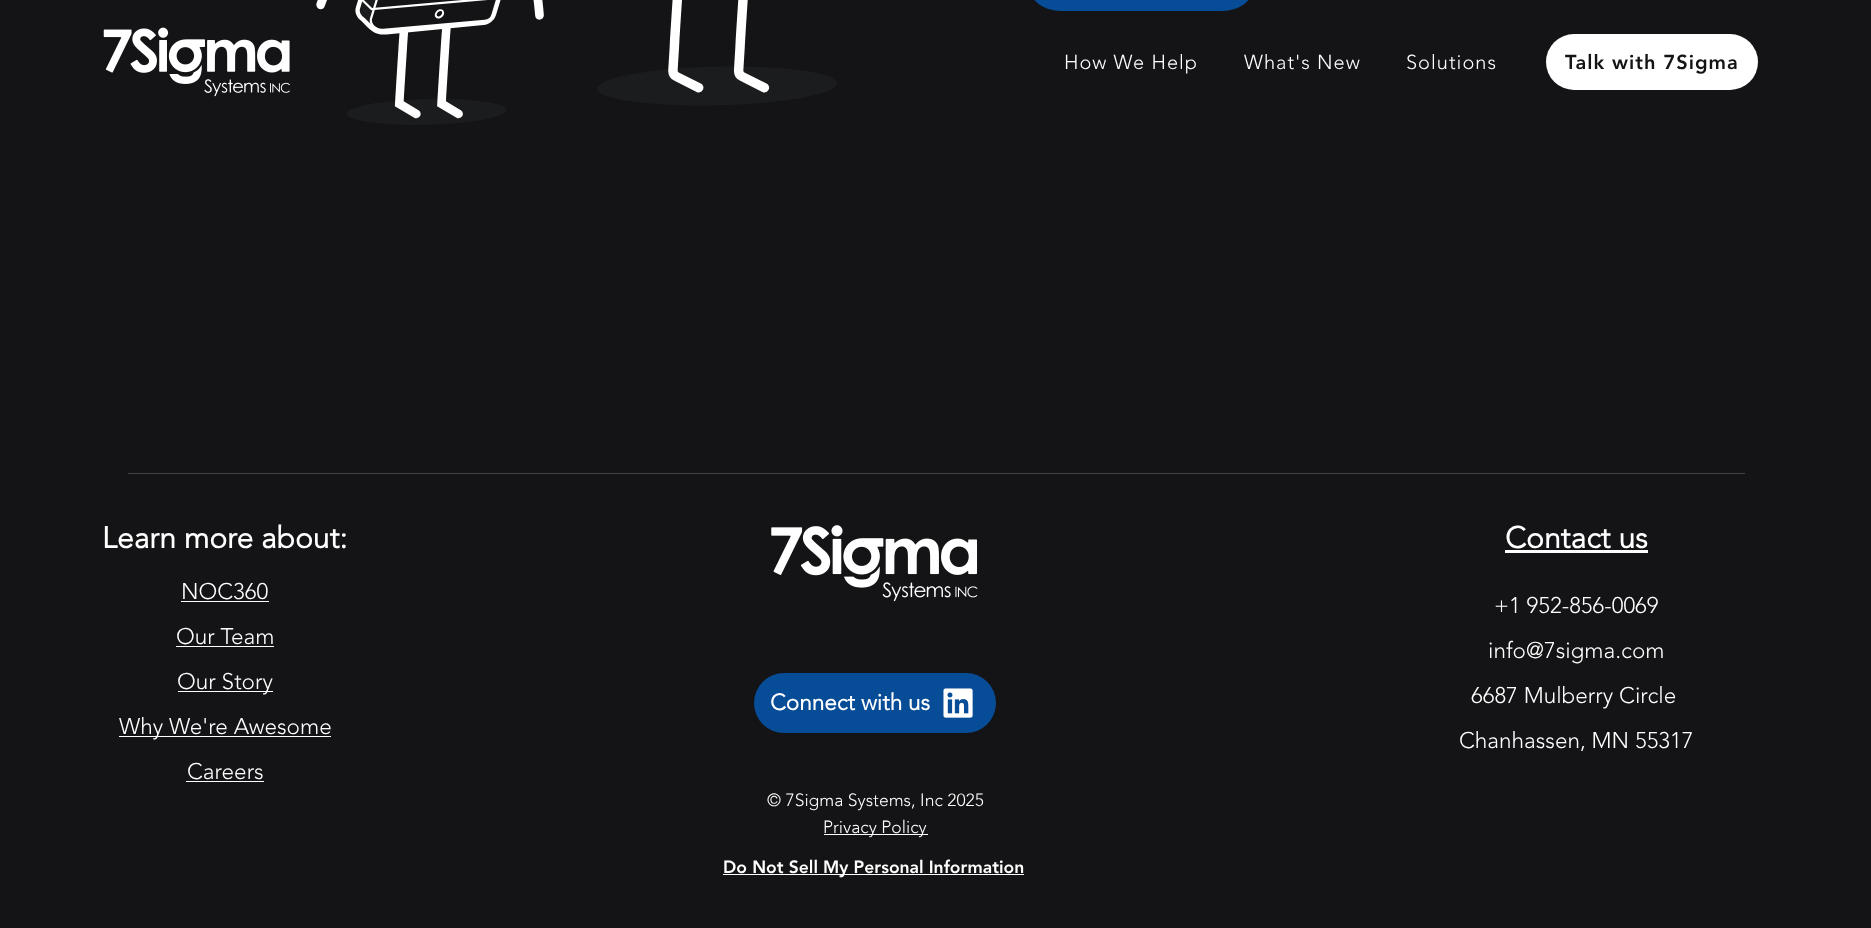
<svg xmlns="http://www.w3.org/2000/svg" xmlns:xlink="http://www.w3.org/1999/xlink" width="1871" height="928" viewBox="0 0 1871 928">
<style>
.cls-1{font:300 20px 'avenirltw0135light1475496';letter-spacing:1px;fill:#ffffff}
.cls-2{font:900 20px 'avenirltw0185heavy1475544';letter-spacing:1px;fill:#141416}
.cls-3{font:bold 30px 'avenirltw0135light1475496';fill:#ffffff}
.cls-4{font:300 22.5px 'avenirltw0135light1475496';fill:#ffffff}
.cls-5{font:bold 22.5px 'avenirltw0135light1475496';fill:#ffffff}
.cls-6{font:300 17.5px 'avenirltw0135light1475496';fill:#ffffff}
.cls-7{font:900 17.5px 'avenirltw0185heavy1475544';fill:#ffffff}
</style>
<rect width="100%" height="100%" fill="#141416"/>
<rect fill="#074c97" stroke="#074c97" stroke-width="4" x="1032" y="-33" width="219" height="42" rx="29"/>
<image xlink:href="image0.png" x="316" y="0" width="521" height="125"/>
<image xlink:href="image1.png" x="103" y="27" width="187" height="70"/>
<rect fill="#ffffff" x="1546" y="34" width="212" height="56" rx="28"/>
<rect fill="#424242" x="128" y="473" width="1617" height="1"/>
<rect fill="#ffffff" x="181" y="601" width="88" height="1"/>
<rect fill="#ffffff" x="176" y="646" width="98" height="1"/>
<rect fill="#ffffff" x="178" y="691" width="95" height="1"/>
<rect fill="#ffffff" x="119" y="736" width="212" height="1"/>
<rect fill="#ffffff" x="186" y="781" width="78" height="1"/>
<rect fill="#ffffff" x="1505" y="550" width="143" height="3"/>
<rect fill="#074c97" x="754" y="673" width="242" height="60" rx="30"/>
<image xlink:href="image2.png" x="943" y="688" width="30" height="30"/>
<image xlink:href="image3.png" x="771" y="525" width="207" height="77"/>
<rect fill="#ffffff" x="824" y="834" width="104" height="1"/>
<rect fill="#ffffff" x="723" y="874" width="301" height="1"/>
<text class="cls-1" x="1064" y="69">How We Help</text>
<text class="cls-1" x="1244" y="69">What's New</text>
<text class="cls-1" x="1406" y="69">Solutions</text>
<text class="cls-2" x="1565" y="69">Talk with 7Sigma</text>
<text class="cls-3" x="102" y="548">Learn more about:</text>
<text class="cls-4" x="181" y="599">NOC360</text>
<text class="cls-4" x="176" y="644">Our Team</text>
<text class="cls-4" x="177" y="689">Our Story</text>
<text class="cls-4" x="119" y="734">Why We're Awesome</text>
<text class="cls-4" x="187" y="779">Careers</text>
<text class="cls-3" x="1505" y="548">Contact us</text>
<text class="cls-4" x="1494" y="613">+1 952-856-0069</text>
<text class="cls-4" x="1488" y="658">info@7sigma.com</text>
<text class="cls-4" x="1471" y="703">6687 Mulberry Circle</text>
<text class="cls-4" x="1459" y="748">Chanhassen, MN 55317</text>
<text class="cls-5" x="770" y="710">Connect with us</text>
<text class="cls-6" x="767" y="806">© 7Sigma Systems, Inc 2025</text>
<text class="cls-6" x="823" y="833">Privacy Policy</text>
<text class="cls-7" x="723" y="873">Do Not Sell My Personal Information</text>
</svg>
